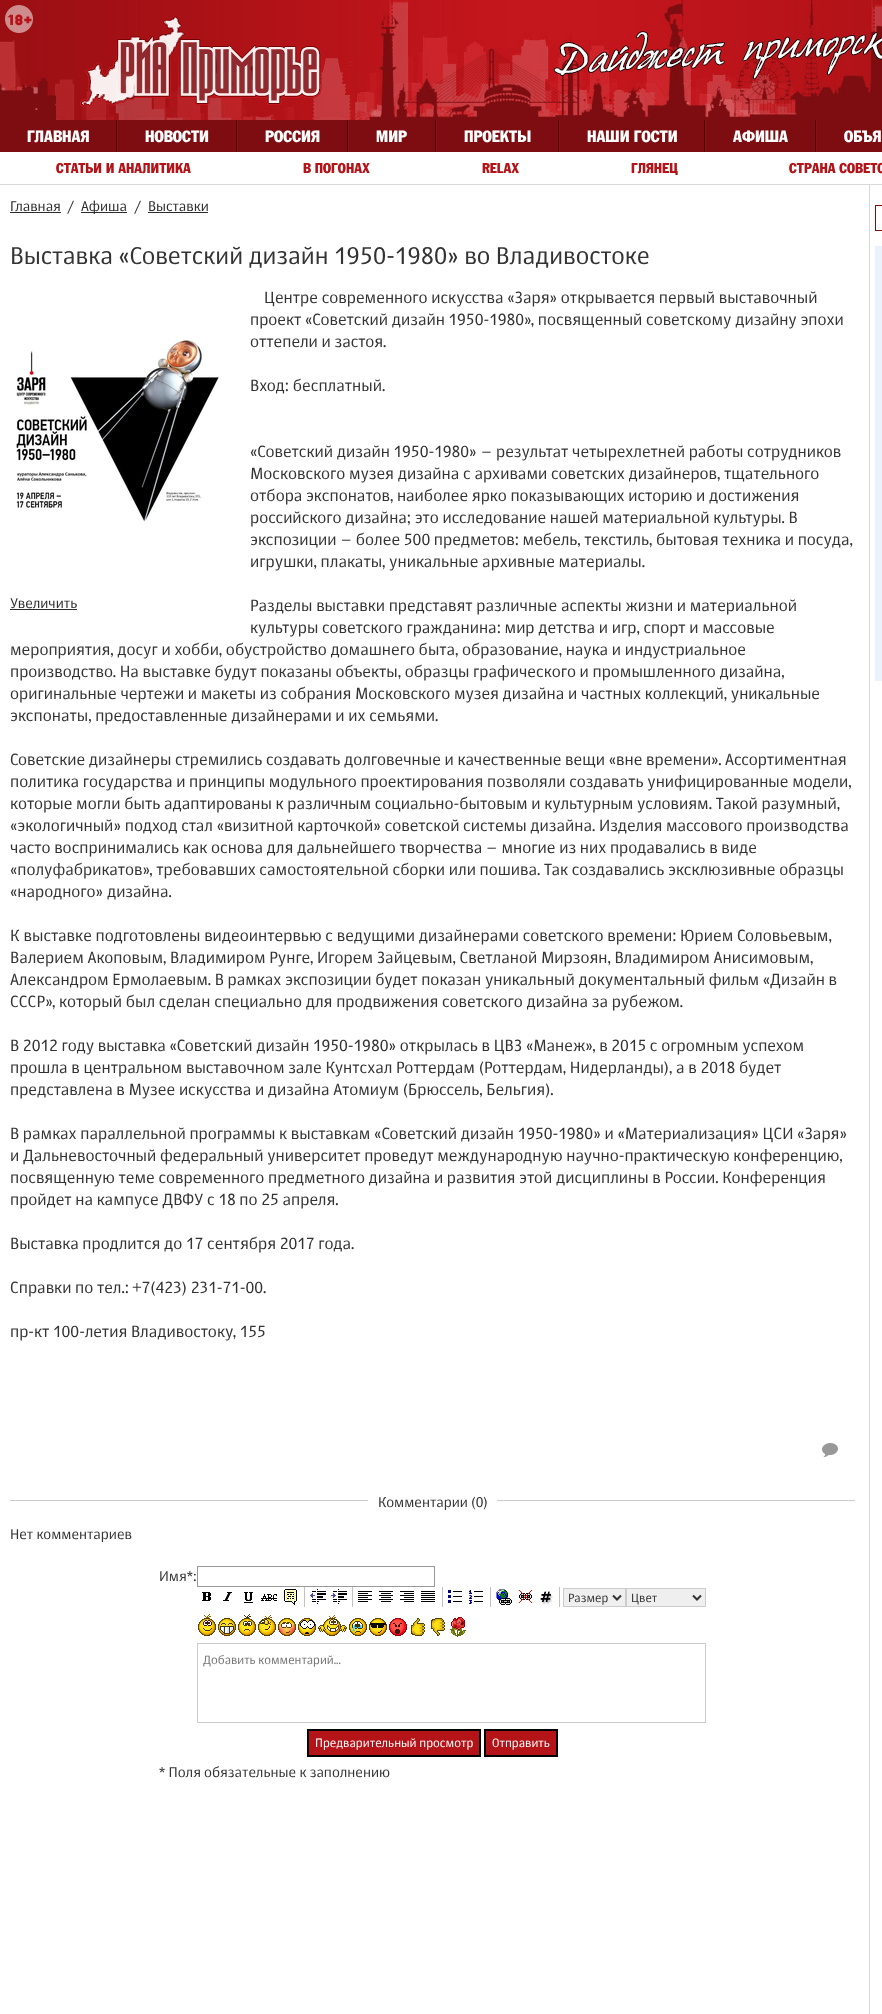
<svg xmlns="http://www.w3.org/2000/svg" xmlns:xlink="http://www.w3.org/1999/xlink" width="882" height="2014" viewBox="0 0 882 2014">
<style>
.cls-1{font:16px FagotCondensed;fill:#ffffff}
.cls-2{font:14px FagotCondensed;fill:#b41318}
.cls-3{font:14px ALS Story;fill:#2d2d2d}
.cls-4{font:14px ALS Story;fill:#333333}
.cls-5{font:24px ALS Story;fill:#333333}
.cls-6{font:16px ALS Story;fill:#333333}
.cls-7{font:11.9px ALS Story;fill:#333333}
.cls-8{font:11.9px ALS Story;fill:#757575}
.cls-9{font:12px ALS Story;fill:#ffffff}
</style>
<rect width="100%" height="100%" fill="#ffffff"/>
<image xlink:href="image0.png" x="0" y="0" width="882" height="120"/>
<image xlink:href="image1.png" x="5" y="5" width="28" height="28"/>
<image xlink:href="image2.png" x="80" y="16" width="242" height="92"/>
<rect fill="#7d0d11" x="0" y="120" width="882" height="32"/>
<rect fill="#500003" x="116" y="120" width="1" height="32"/>
<rect fill="#500003" x="236" y="120" width="1" height="32"/>
<rect fill="#8b0f13" x="117" y="120" width="1" height="32"/>
<rect fill="#500003" x="347" y="120" width="1" height="32"/>
<rect fill="#8b0f13" x="237" y="120" width="1" height="32"/>
<rect fill="#500003" x="435" y="120" width="1" height="32"/>
<rect fill="#8b0f13" x="348" y="120" width="1" height="32"/>
<rect fill="#500003" x="558" y="120" width="1" height="32"/>
<rect fill="#8b0f13" x="436" y="120" width="1" height="32"/>
<rect fill="#500003" x="704" y="120" width="1" height="32"/>
<rect fill="#8b0f13" x="559" y="120" width="1" height="32"/>
<rect fill="#500003" x="815" y="120" width="1" height="32"/>
<rect fill="#8b0f13" x="705" y="120" width="1" height="32"/>
<rect fill="#8b0f13" x="816" y="120" width="1" height="32"/>
<rect fill="#d6dadd" x="0" y="184" width="882" height="1"/>
<rect fill="#2d2d2d" x="10" y="212" width="51" height="1"/>
<rect fill="#2d2d2d" x="81" y="212" width="46" height="1"/>
<rect fill="#2d2d2d" x="148" y="212" width="60" height="1"/>
<image xlink:href="image3.png" x="16" y="340" width="203" height="182"/>
<rect fill="#2d2d2d" x="10" y="609" width="67" height="1"/>
<image xlink:href="image4.png" x="822" y="1443" width="16" height="14"/>
<rect fill="#cccccc" x="10" y="1500" width="845" height="1"/>
<rect fill="#ffffff" x="368" y="1500" width="129" height="1"/>
<rect fill="none" stroke="#999999" x="197.5" y="1566.5" width="237" height="20"/>
<image xlink:href="image5.png" x="202" y="1592" width="9" height="9"/>
<image xlink:href="image6.png" x="223" y="1592" width="9" height="9"/>
<image xlink:href="image7.png" x="244" y="1592" width="9" height="11"/>
<image xlink:href="image8.png" x="261" y="1594" width="16" height="7"/>
<image xlink:href="image9.png" x="284" y="1589" width="13" height="16"/>
<rect fill="#c5c2b8" x="304" y="1587" width="1" height="20"/>
<image xlink:href="image10.png" x="310" y="1589" width="16" height="15"/>
<image xlink:href="image11.png" x="331" y="1589" width="16" height="15"/>
<rect fill="#c5c2b8" x="352" y="1587" width="1" height="20"/>
<image xlink:href="image12.png" x="358" y="1591" width="14" height="11"/>
<image xlink:href="image13.png" x="379" y="1591" width="14" height="11"/>
<image xlink:href="image14.png" x="400" y="1591" width="14" height="11"/>
<image xlink:href="image15.png" x="421" y="1591" width="14" height="11"/>
<rect fill="#c5c2b8" x="442" y="1587" width="1" height="20"/>
<image xlink:href="image16.png" x="448" y="1590" width="14" height="13"/>
<image xlink:href="image17.png" x="469" y="1590" width="14" height="14"/>
<rect fill="#c5c2b8" x="490" y="1587" width="1" height="20"/>
<image xlink:href="image18.png" x="496" y="1589" width="16" height="16"/>
<image xlink:href="image19.png" x="519" y="1590" width="13" height="13"/>
<image xlink:href="image20.png" x="540" y="1591" width="13" height="14"/>
<rect fill="#c5c2b8" x="559" y="1587" width="1" height="20"/>
<rect fill="#efefef" stroke="#cccccc" x="563.5" y="1588.5" width="62" height="18"/>
<path fill="none" stroke="#333333" stroke-width="2" d="M613 1595.5L617 1599.5L621 1595.5"/>
<rect fill="#efefef" stroke="#cccccc" x="626.5" y="1588.5" width="79" height="18"/>
<path fill="none" stroke="#333333" stroke-width="2" d="M693 1595.5L697 1599.5L701 1595.5"/>
<image xlink:href="image21.png" x="198" y="1614" width="18" height="22"/>
<image xlink:href="image22.png" x="218" y="1618" width="18" height="18"/>
<image xlink:href="image23.png" x="238" y="1614" width="18" height="22"/>
<image xlink:href="image24.png" x="258" y="1615" width="18" height="21"/>
<image xlink:href="image25.png" x="278" y="1618" width="18" height="18"/>
<image xlink:href="image26.png" x="298" y="1618" width="18" height="18"/>
<image xlink:href="image27.png" x="318" y="1615" width="29" height="21"/>
<image xlink:href="image28.png" x="349" y="1618" width="18" height="18"/>
<image xlink:href="image29.png" x="369" y="1618" width="18" height="18"/>
<image xlink:href="image30.png" x="389" y="1618" width="18" height="18"/>
<image xlink:href="image31.png" x="411" y="1618" width="14" height="18"/>
<image xlink:href="image32.png" x="431" y="1618" width="14" height="18"/>
<image xlink:href="image33.png" x="450" y="1617" width="16" height="20"/>
<rect fill="none" stroke="#cccccc" x="197.5" y="1643.5" width="508" height="79"/>
<rect fill="#b41318" stroke="#000000" stroke-width="2" x="308" y="1730" width="172" height="26"/>
<rect fill="#b41318" stroke="#000000" stroke-width="2" x="485" y="1730" width="72" height="26"/>
<rect fill="#d6dadd" x="869" y="185" width="1" height="1829"/>
<rect fill="none" stroke="#7d0d11" x="875.5" y="205.5" width="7" height="25"/>
<rect fill="#ebf2fc" x="875" y="246" width="7" height="435"/>
<text class="cls-1" x="27" y="142">ГЛАВНАЯ</text>
<text class="cls-1" x="145" y="142">НОВОСТИ</text>
<text class="cls-1" x="265" y="142">РОССИЯ</text>
<text class="cls-1" x="376" y="142">МИР</text>
<text class="cls-1" x="464" y="142">ПРОЕКТЫ</text>
<text class="cls-1" x="587" y="142">НАШИ ГОСТИ</text>
<text class="cls-1" x="733" y="142">АФИША</text>
<text class="cls-1" x="844" y="142">ОБЪЯ</text>
<text class="cls-2" x="56" y="173">СТАТЬИ И АНАЛИТИКА</text>
<text class="cls-2" x="303" y="173">В ПОГОНАХ</text>
<text class="cls-2" x="482" y="173">RELAX</text>
<text class="cls-2" x="631" y="173">ГЛЯНЕЦ</text>
<text class="cls-2" x="789" y="173">СТРАНА СОВЕТО</text>
<text class="cls-3" x="10" y="211">Главная</text>
<text class="cls-4" x="67" y="211">/</text>
<text class="cls-3" x="81" y="211">Афиша</text>
<text class="cls-4" x="134" y="211">/</text>
<text class="cls-3" x="148" y="211">Выставки</text>
<text class="cls-5" x="10" y="264">Выставка «Советский дизайн 1950-1980» во Владивостоке</text>
<text class="cls-6" x="264" y="303">Центре современного искусства «Заря» открывается первый выставочный</text>
<text class="cls-6"><tspan x="250" y="325">проект «Советский дизайн 1950-1980», посвященный советскому дизайну эпохи</tspan><tspan x="250" y="347">оттепели и застоя.</tspan></text>
<text class="cls-6" x="250" y="391">Вход: бесплатный.</text>
<text class="cls-6"><tspan x="250" y="457">«Советский дизайн 1950-1980» – результат четырехлетней работы сотрудников</tspan><tspan x="250" y="479">Московского музея дизайна с архивами советских дизайнеров, тщательного</tspan><tspan x="250" y="501">отбора экспонатов, наиболее ярко показывающих историю и достижения</tspan><tspan x="250" y="523">российского дизайна; это исследование нашей материальной культуры. В</tspan><tspan x="250" y="545">экспозиции – более 500 предметов: мебель, текстиль, бытовая техника и посуда,</tspan><tspan x="250" y="567">игрушки, плакаты, уникальные архивные материалы.</tspan></text>
<text class="cls-6"><tspan x="250" y="611">Разделы выставки представят различные аспекты жизни и материальной</tspan><tspan x="250" y="633">культуры советского гражданина: мир детства и игр, спорт и массовые</tspan></text>
<text class="cls-6"><tspan x="10" y="655">мероприятия, досуг и хобби, обустройство домашнего быта, образование, наука и индустриальное</tspan><tspan x="10" y="677">производство. На выставке будут показаны объекты, образцы графического и промышленного дизайна,</tspan><tspan x="10" y="699">оригинальные чертежи и макеты из собрания Московского музея дизайна и частных коллекций, уникальные</tspan><tspan x="10" y="721">экспонаты, предоставленные дизайнерами и их семьями.</tspan></text>
<text class="cls-6"><tspan x="10" y="765">Советские дизайнеры стремились создавать долговечные и качественные вещи «вне времени». Ассортиментная</tspan><tspan x="10" y="787">политика государства и принципы модульного проектирования позволяли создавать унифицированные модели,</tspan><tspan x="10" y="809">которые могли быть адаптированы к различным социально-бытовым и культурным условиям. Такой разумный,</tspan><tspan x="10" y="831">«экологичный» подход стал «визитной карточкой» советской системы дизайна. Изделия массового производства</tspan><tspan x="10" y="853">часто воспринимались как основа для дальнейшего творчества – многие из них продавались в виде</tspan><tspan x="10" y="875">«полуфабрикатов», требовавших самостоятельной сборки или пошива. Так создавались эксклюзивные образцы</tspan><tspan x="10" y="897">«народного» дизайна.</tspan></text>
<text class="cls-6"><tspan x="10" y="941">К выставке подготовлены видеоинтервью с ведущими дизайнерами советского времени: Юрием Соловьевым,</tspan><tspan x="10" y="963">Валерием Акоповым, Владимиром Рунге, Игорем Зайцевым, Светланой Мирзоян, Владимиром Анисимовым,</tspan><tspan x="10" y="985">Александром Ермолаевым. В рамках экспозиции будет показан уникальный документальный фильм «Дизайн в</tspan><tspan x="10" y="1007">СССР», который был сделан специально для продвижения советского дизайна за рубежом.</tspan></text>
<text class="cls-6"><tspan x="10" y="1051">В 2012 году выставка «Советский дизайн 1950-1980» открылась в ЦВЗ «Манеж», в 2015 с огромным успехом</tspan><tspan x="10" y="1073">прошла в центральном выставочном зале Кунтсхал Роттердам (Роттердам, Нидерланды), а в 2018 будет</tspan><tspan x="10" y="1095">представлена в Музее искусства и дизайна Атомиум (Брюссель, Бельгия).</tspan></text>
<text class="cls-6"><tspan x="10" y="1139">В рамках параллельной программы к выставкам «Советский дизайн 1950-1980» и «Материализация» ЦСИ «Заря»</tspan><tspan x="10" y="1161">и Дальневосточный федеральный университет проведут международную научно-практическую конференцию,</tspan><tspan x="10" y="1183">посвященную теме современного предметного дизайна и развития этой дисциплины в России. Конференция</tspan><tspan x="10" y="1205">пройдет на кампусе ДВФУ с 18 по 25 апреля.</tspan></text>
<text class="cls-6" x="10" y="1249">Выставка продлится до 17 сентября 2017 года.</text>
<text class="cls-6" x="10" y="1293">Справки по тел.: +7(423) 231-71-00.</text>
<text class="cls-6" x="10" y="1337">пр-кт 100-летия Владивостоку, 155</text>
<text class="cls-3" x="10" y="608">Увеличить</text>
<text class="cls-4" x="378" y="1507">Комментарии (0)</text>
<text class="cls-4" x="10" y="1539">Нет комментариев</text>
<text class="cls-4" x="159" y="1581">Имя*:</text>
<text class="cls-7" x="568" y="1602">Размер</text>
<text class="cls-7" x="631" y="1602">Цвет</text>
<text class="cls-8" x="203" y="1664">Добавить комментарий...</text>
<text class="cls-9" x="315" y="1747">Предварительный просмотр</text>
<text class="cls-9" x="492" y="1747">Отправить</text>
<text class="cls-4" x="159" y="1777">* Поля обязательные к заполнению</text>
</svg>
